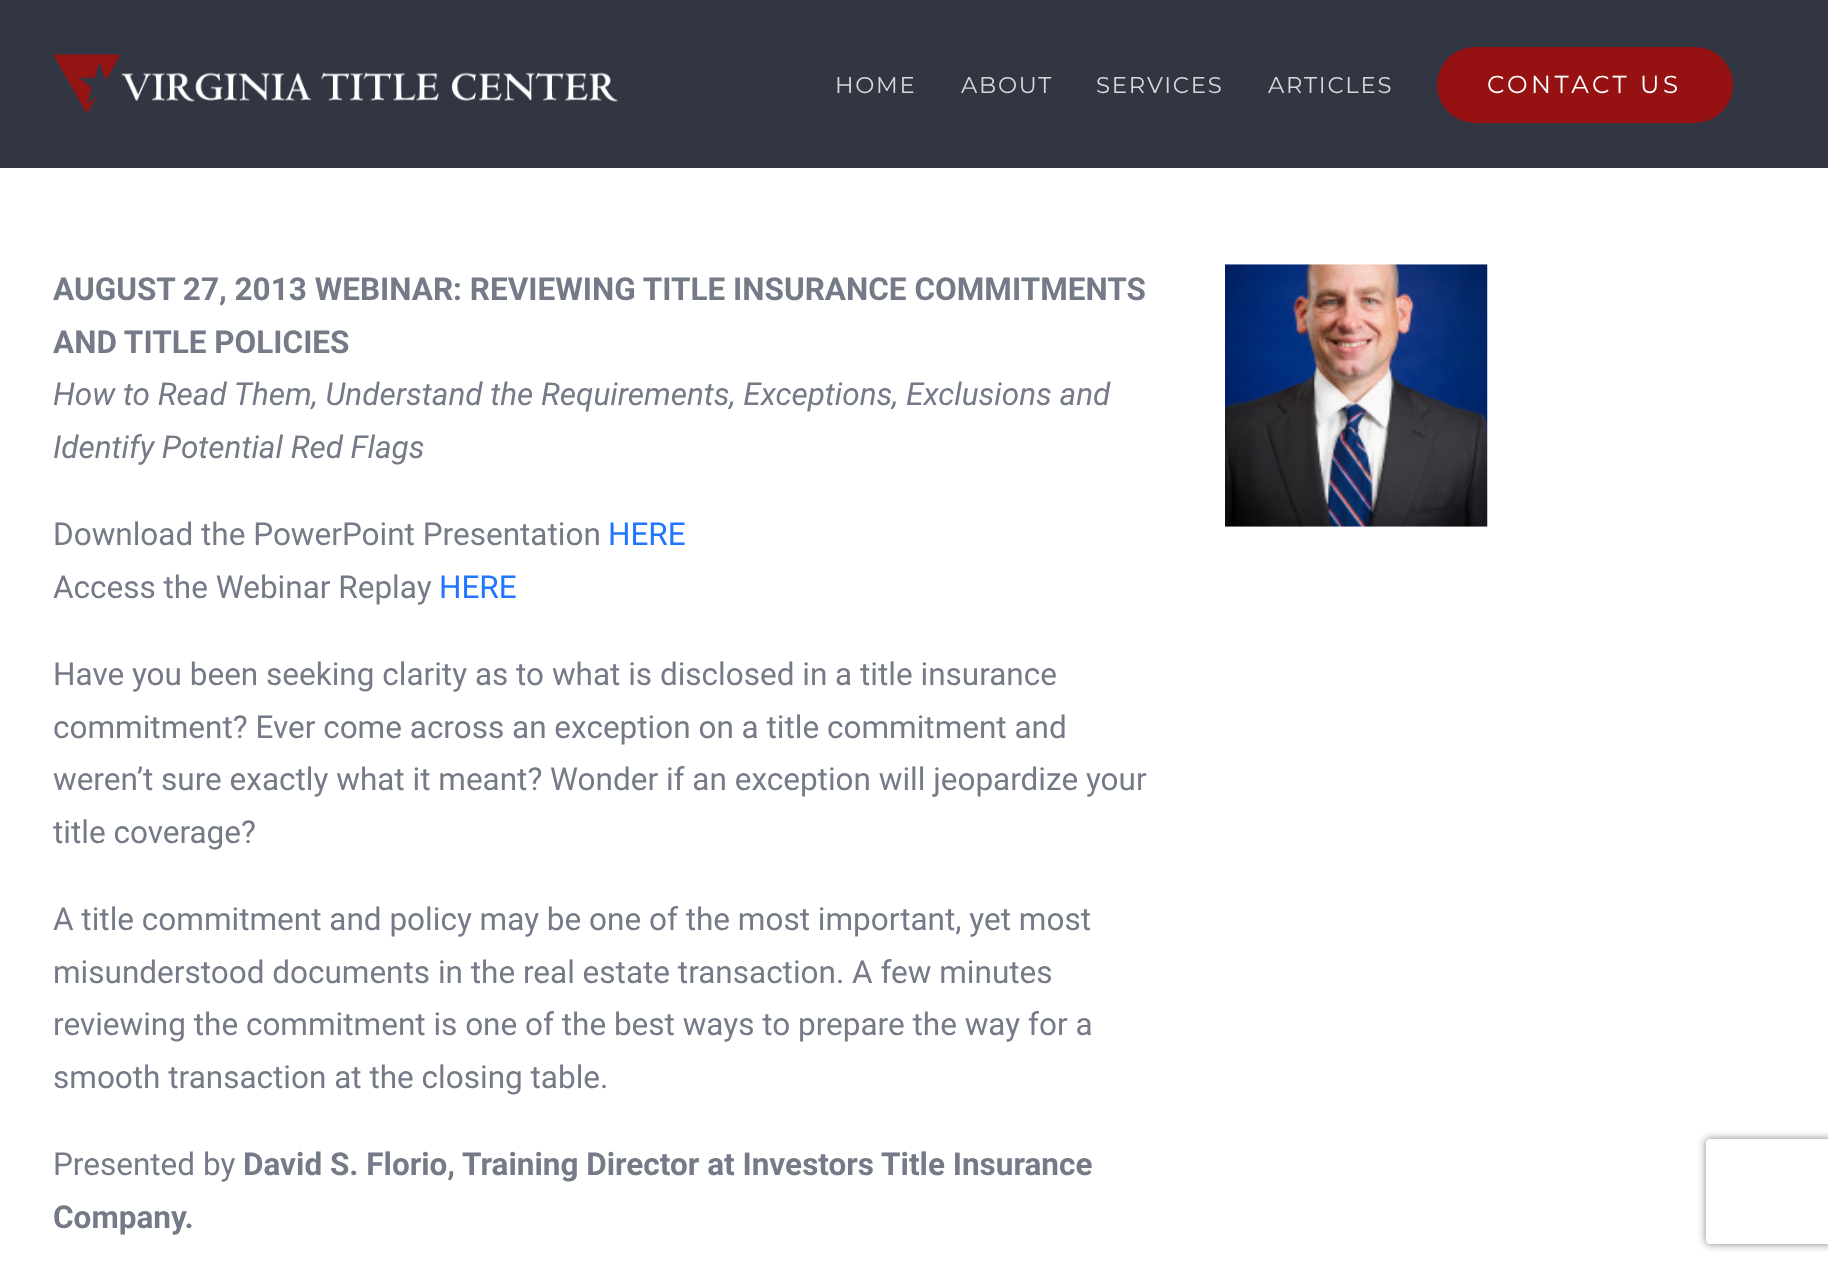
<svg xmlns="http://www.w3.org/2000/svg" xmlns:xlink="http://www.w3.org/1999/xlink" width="1828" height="1268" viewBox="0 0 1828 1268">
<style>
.cls-1{font:100 22.75px Montserrat;letter-spacing:1.75px;fill:#d8d8d8}
.cls-2{font:100 24.5px Montserrat;letter-spacing:3.5px;fill:#ffffff}
.cls-3{font:bold 31.5px Roboto;fill:#747a87}
.cls-4{font:italic 31.5px Roboto;fill:#747a87}
.cls-5{font:31.5px Roboto;fill:#747a87}
.cls-6{font:31.5px Roboto;fill:#2176ff}
</style>
<defs>
<clipPath id="clip1"><path d="M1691 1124H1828V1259H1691ZM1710 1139H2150C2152 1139 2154 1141 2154 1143V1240C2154 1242 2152 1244 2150 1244H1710C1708 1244 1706 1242 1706 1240V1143C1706 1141 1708 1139 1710 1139Z" clip-rule="evenodd"/></clipPath>
</defs>
<rect width="100%" height="100%" fill="#ffffff"/>
<rect fill="#323643" x="0" y="0" width="1828" height="168"/>
<image xlink:href="image0.png" x="53" y="54" width="565" height="60"/>
<rect fill="#961111" x="1437" y="47" width="296" height="76" rx="38"/>
<image xlink:href="image1.png" x="1225" y="264" width="263" height="263"/>
<g clip-path="url(#clip1)">
<rect fill="#808080" filter="blur(4.5px)" x="1706" y="1139" width="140" height="105" rx="4"/>
</g>
<text class="cls-1" x="835" y="93">HOME</text>
<text class="cls-1" x="961" y="93">ABOUT</text>
<text class="cls-1" x="1096" y="93">SERVICES</text>
<text class="cls-1" x="1268" y="93">ARTICLES</text>
<text class="cls-2" x="1487" y="93">CONTACT US</text>
<text class="cls-3"><tspan x="53" y="300">AUGUST 27, 2013 WEBINAR: REVIEWING TITLE INSURANCE COMMITMENTS</tspan><tspan x="53" y="353">AND TITLE POLICIES</tspan></text>
<text class="cls-4"><tspan x="53" y="405">How to Read Them, Understand the Requirements, Exceptions, Exclusions and</tspan><tspan x="53" y="458">Identify Potential Red Flags</tspan></text>
<text class="cls-5" x="53" y="545">Download the PowerPoint Presentation</text>
<text class="cls-6" x="608" y="545">HERE</text>
<text class="cls-5" x="53" y="598">Access the Webinar Replay</text>
<text class="cls-6" x="439" y="598">HERE</text>
<text class="cls-5"><tspan x="53" y="685">Have you been seeking clarity as to what is disclosed in a title insurance</tspan><tspan x="53" y="738">commitment? Ever come across an exception on a title commitment and</tspan><tspan x="53" y="790">weren’t sure exactly what it meant? Wonder if an exception will jeopardize your</tspan><tspan x="53" y="843">title coverage?</tspan></text>
<text class="cls-5"><tspan x="53" y="930">A title commitment and policy may be one of the most important, yet most</tspan><tspan x="53" y="983">misunderstood documents in the real estate transaction. A few minutes</tspan><tspan x="53" y="1035">reviewing the commitment is one of the best ways to prepare the way for a</tspan><tspan x="53" y="1088">smooth transaction at the closing table.</tspan></text>
<text class="cls-5" x="53" y="1175">Presented by</text>
<text class="cls-3" x="243" y="1175">David S. Florio, Training Director at Investors Title Insurance</text>
<text class="cls-3" x="53" y="1228">Company.</text>
</svg>
